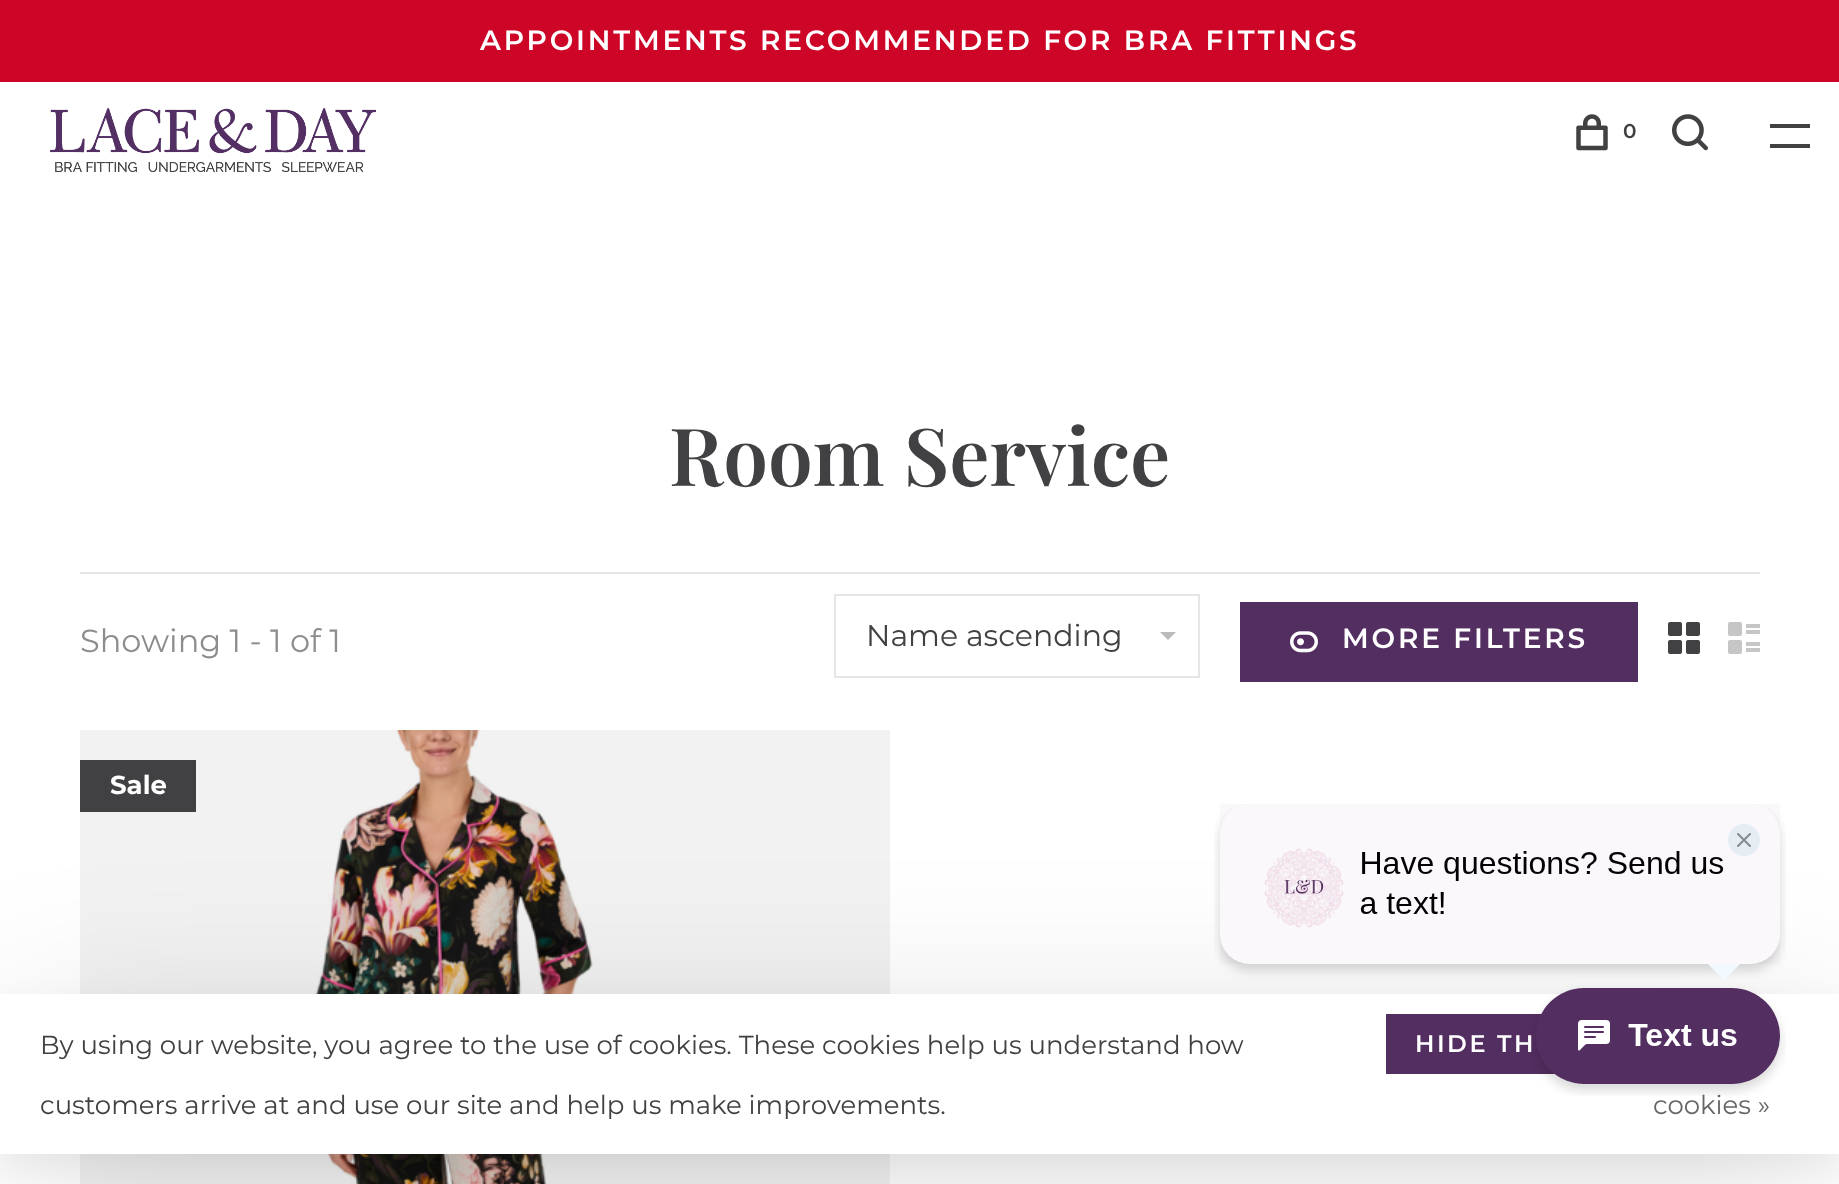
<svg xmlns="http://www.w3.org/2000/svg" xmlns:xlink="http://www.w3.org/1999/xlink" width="1839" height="1184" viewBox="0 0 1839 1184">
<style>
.cls-1{font:600 28px Montserrat;letter-spacing:2.8px;fill:#ffffff}
.cls-2{font:600 20px Montserrat;letter-spacing:2.8px;fill:#414042}
.cls-3{font:600 80px Playfair Display;fill:#414042}
.cls-4{font:32px Montserrat;fill:#8d8c8e}
.cls-5{font:30px Montserrat;fill:#414042}
.cls-6{font:bold 26px Montserrat;fill:#ffffff}
.cls-7{font:26px Montserrat;fill:#414042}
.cls-8{font:600 24px Montserrat;letter-spacing:2.5px;fill:#ffffff}
.cls-9{font:26px Montserrat;fill:#666666}
</style>
<rect width="100%" height="100%" fill="#ffffff"/>
<rect fill="#cd0526" x="0" y="0" width="1839" height="82"/>
<image xlink:href="image0.png" x="50" y="108" width="326" height="64"/>
<image xlink:href="image1.png" x="1576" y="114" width="32" height="37"/>
<image xlink:href="image2.png" x="1672" y="114" width="36" height="37"/>
<rect fill="#414042" x="1770" y="124" width="40" height="4"/>
<rect fill="#414042" x="1770" y="144" width="40" height="4"/>
<rect fill="#e6e6e6" x="80" y="572" width="1680" height="2"/>
<rect fill="none" stroke="#e6e6e6" stroke-width="2" x="835" y="595" width="364" height="82"/>
<path fill="#bbbbbb" d="M1160 632H1176L1168 640Z"/>
<rect fill="#532e60" x="1240" y="602" width="398" height="80"/>
<image xlink:href="image3.png" x="1290" y="631" width="28" height="22"/>
<image xlink:href="image4.png" x="1668" y="622" width="32" height="32"/>
<image xlink:href="image5.png" x="1728" y="622" width="32" height="32"/>
<image xlink:href="image6.png" x="80" y="730" width="810" height="454"/>
<rect fill="#414042" x="80" y="760" width="116" height="52"/>
<rect fill="#000000" fill-opacity="0.05" filter="blur(15px)" x="0" y="1006" width="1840" height="160"/>
<rect fill="#000000" fill-opacity="0.15" filter="blur(86px)" x="12" y="1034" width="1816" height="136"/>
<rect fill="#ffffff" x="0" y="994" width="1839" height="160"/>
<rect fill="#532e60" x="1386" y="1014" width="169" height="60"/>
<text class="cls-1" x="480" y="50">APPOINTMENTS RECOMMENDED FOR BRA FITTINGS</text>
<text class="cls-2" x="1623" y="138">0</text>
<text class="cls-3" x="669" y="486">Room Service</text>
<text class="cls-4" x="80" y="652">Showing 1 - 1 of 1</text>
<text class="cls-5" x="866" y="646">Name ascending</text>
<text class="cls-1" x="1342" y="648">MORE FILTERS</text>
<text class="cls-6" x="110" y="794">Sale</text>
<text class="cls-7" x="40" y="1054">By using our website, you agree to the use of cookies. These cookies help us understand how</text>
<text class="cls-8" x="1415" y="1052">HIDE TH</text>
<text class="cls-7" x="40" y="1114">customers arrive at and use our site and help us make improvements.</text>
<text class="cls-9" x="1653" y="1114">cookies »</text>
<image xlink:href="image7.png" x="1214" y="804" width="572" height="292"/>
</svg>
